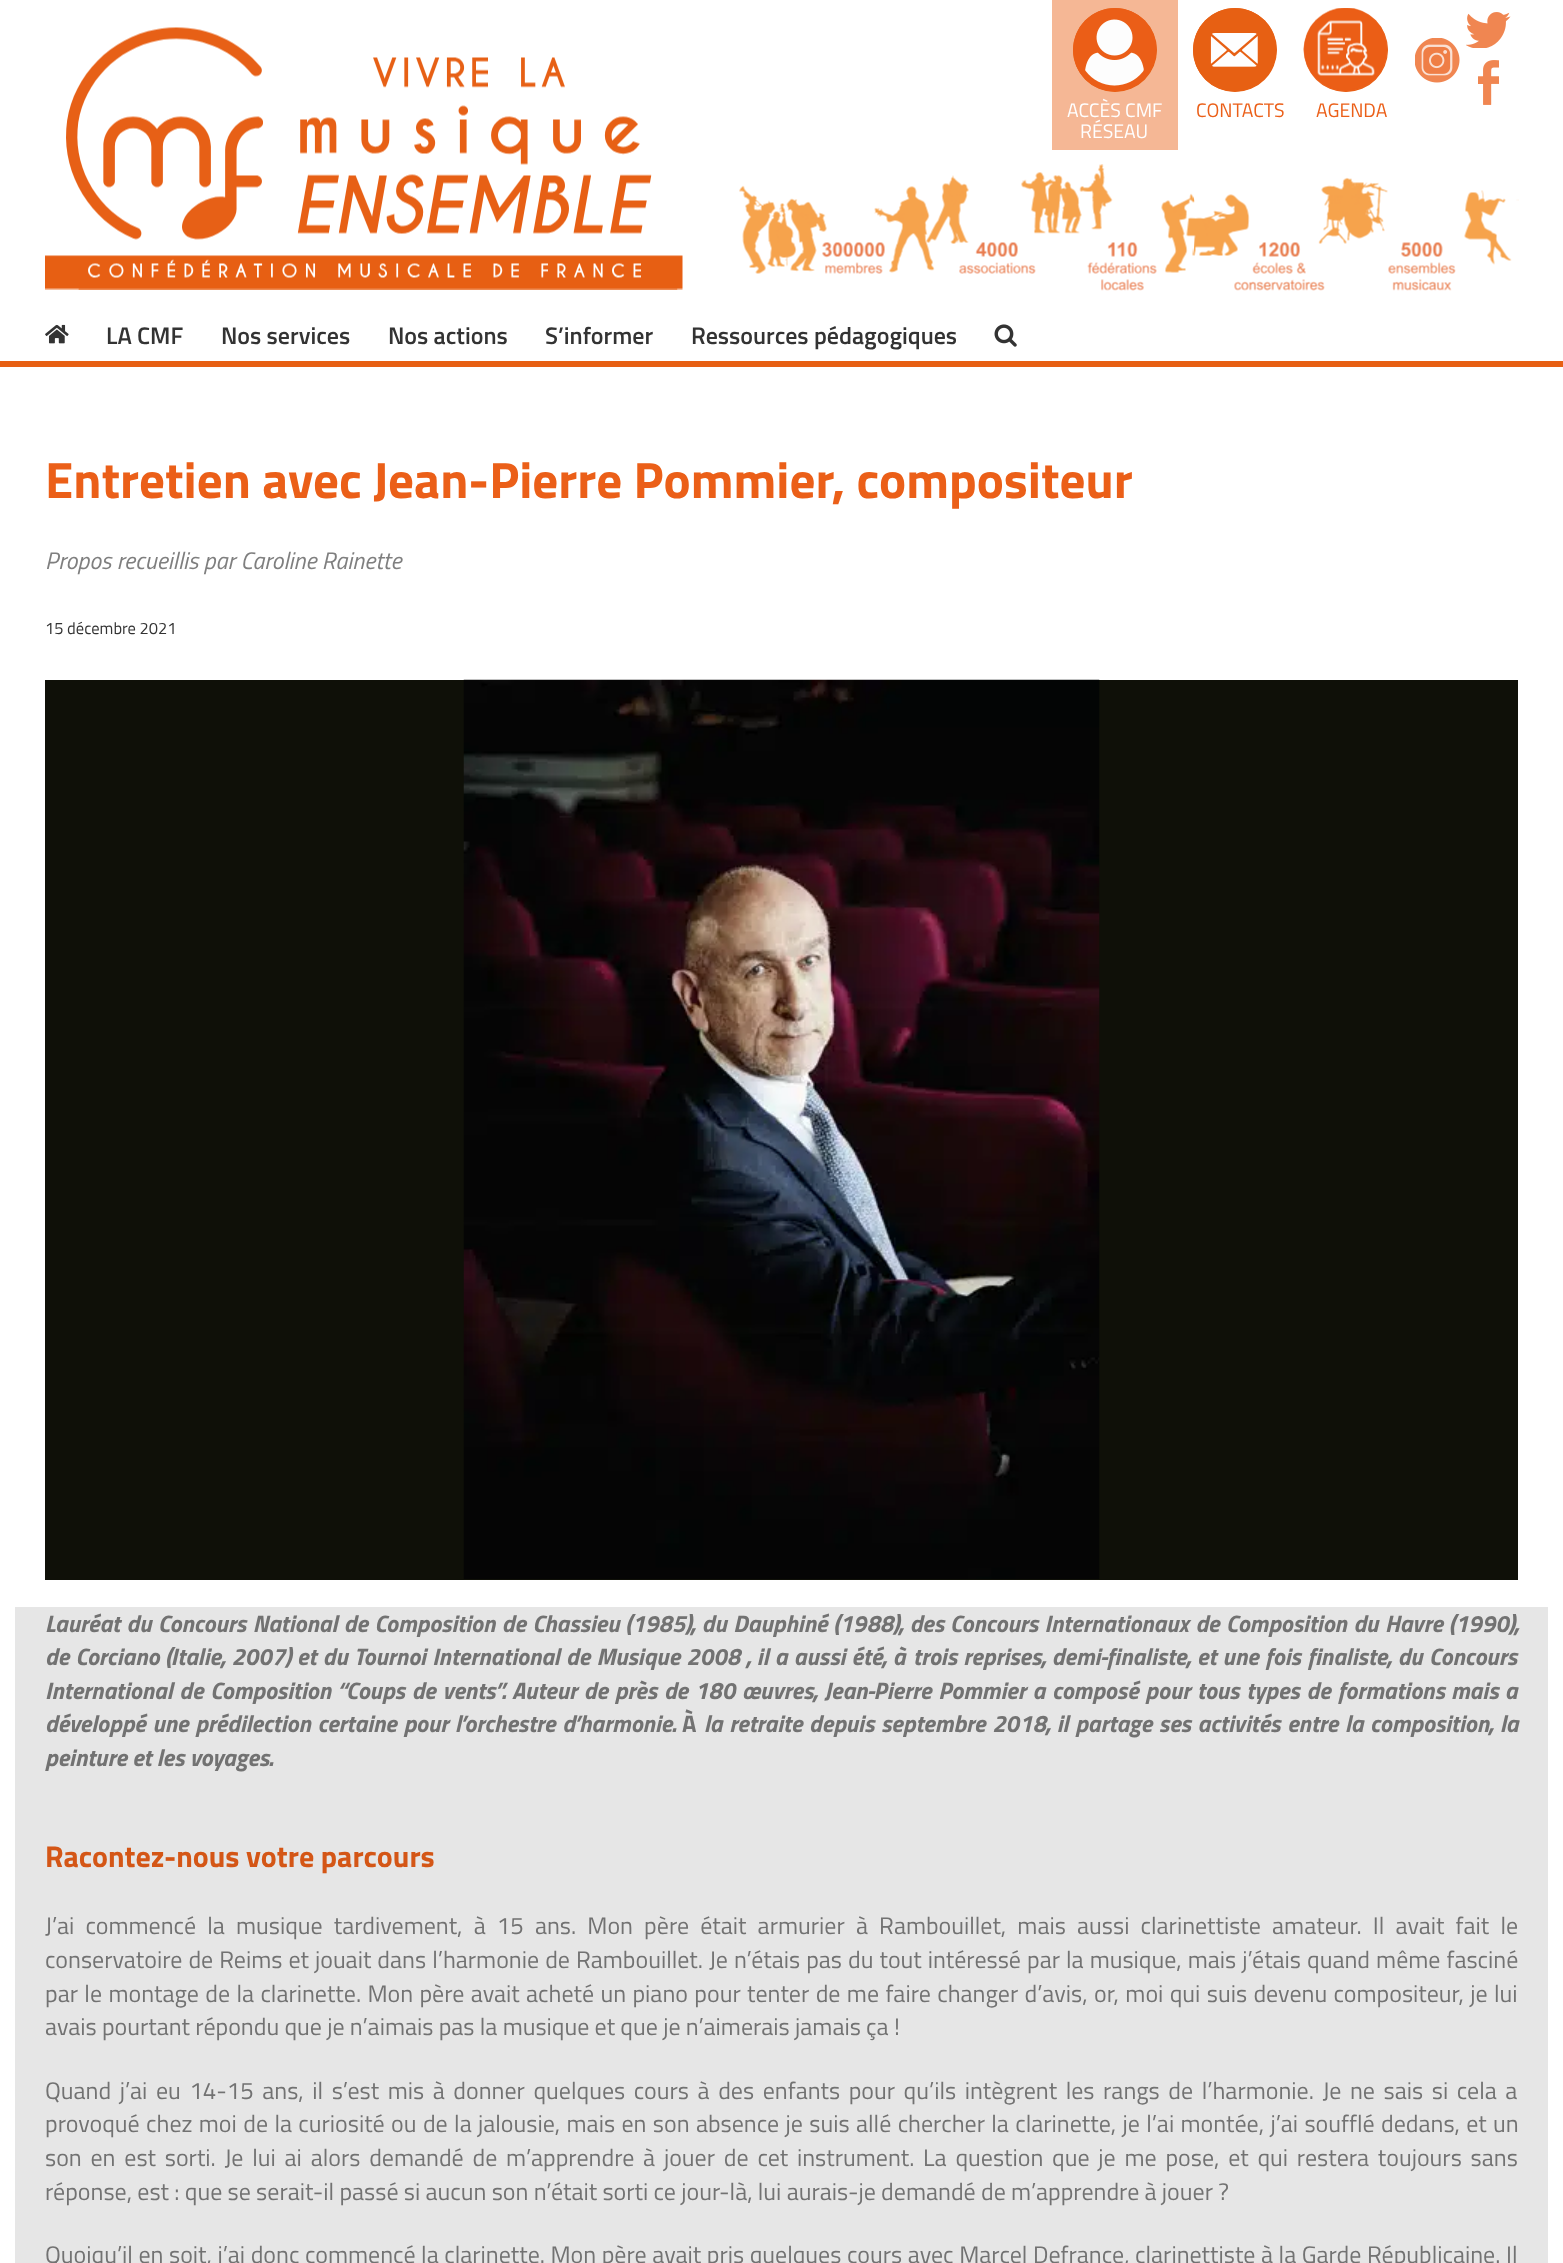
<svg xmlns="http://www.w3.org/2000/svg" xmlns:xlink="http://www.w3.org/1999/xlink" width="1563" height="2263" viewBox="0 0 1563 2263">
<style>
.cls-1{font:19.5px Titillium Web;fill:#ffffff}
.cls-2{font:19.5px Titillium Web;fill:#eb5f18}
.cls-3{font:600 24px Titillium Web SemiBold;fill:#333333}
.cls-4{font:bold 51px Titillium Web;fill:#eb5f18}
.cls-5{font:italic 24px Titillium Web;fill:#7f7f7f}
.cls-6{font:16.5px Titillium Web;fill:#333333}
.cls-7{font:italic bold 24px Titillium Web;fill:#727272}
.cls-8{font:bold 24px Titillium Web;fill:#727272}
.cls-9{font:bold 30px Titillium Web;fill:#d45616}
.cls-10{font:24px Titillium Web;fill:#727272}
</style>
<rect width="100%" height="100%" fill="#ffffff"/>
<rect fill="#e6e6e6" x="15" y="1607" width="1533" height="656"/>
<rect fill="#e75f13" x="0" y="361" width="1563" height="6"/>
<image xlink:href="image0.png" x="45" y="27" width="638" height="263"/>
<image xlink:href="image1.png" x="1466" y="12" width="45" height="36"/>
<image xlink:href="image2.png" x="1415" y="38" width="45" height="45"/>
<image xlink:href="image3.png" x="1478" y="60" width="21" height="45"/>
<rect fill="#f5b795" x="1052" y="0" width="126" height="150"/>
<circle fill="#e86013" cx="1115" cy="50" r="42"/>
<image xlink:href="image4.png" x="1073" y="8" width="84" height="84"/>
<circle fill="#e86013" cx="1235" cy="50" r="42"/>
<image xlink:href="image5.png" x="1193" y="8" width="84" height="84"/>
<circle fill="#e86013" cx="1346" cy="50" r="42"/>
<image xlink:href="image6.png" x="1303" y="8" width="85" height="84"/>
<image xlink:href="image7.png" x="739" y="164" width="780" height="127"/>
<image xlink:href="image8.png" x="45" y="324" width="24" height="20"/>
<image xlink:href="image9.png" x="994" y="324" width="23" height="23"/>
<rect fill="#0f1008" x="45" y="680" width="1473" height="900"/>
<image xlink:href="image10.png" x="463" y="679" width="637" height="900"/>
<text class="cls-1" x="1067" y="117">ACCÈS CMF</text>
<text class="cls-1" x="1080" y="138">RÉSEAU</text>
<text class="cls-2" x="1196" y="117">CONTACTS</text>
<text class="cls-2" x="1316" y="117">AGENDA</text>
<text class="cls-3" x="106" y="344">LA CMF</text>
<text class="cls-3" x="221" y="344">Nos services</text>
<text class="cls-3" x="388" y="344">Nos actions</text>
<text class="cls-3" x="545" y="344">S’informer</text>
<text class="cls-3" x="691" y="344">Ressources pédagogiques</text>
<text class="cls-4" x="45" y="498">Entretien avec Jean-Pierre Pommier, compositeur</text>
<text class="cls-5" x="45" y="569">Propos recueillis par Caroline Rainette</text>
<text class="cls-6" x="45" y="634">15 décembre 2021</text>
<text class="cls-7" x="45" y="1632" word-spacing="1.25">Lauréat du Concours National de Composition de Chassieu (1985), du Dauphiné (1988), des</text>
<text class="cls-7" x="950" y="1632" word-spacing="1.25">Concours Internationaux de Composition du Havre (1990),</text>
<text class="cls-7" x="45" y="1665" word-spacing="1">de Corciano (Italie, 2007) et du</text>
<text class="cls-7" x="354" y="1665" word-spacing="1">Tournoi International de Musique 2008 , il a aussi été, à</text>
<text class="cls-7" x="913" y="1665" word-spacing="1">trois reprises, demi-finaliste, et une fois finaliste, du Concours</text>
<text class="cls-7" x="45" y="1699" word-spacing="1.5">International de Composition “Coups de vents”.</text>
<text class="cls-7" x="512" y="1699" word-spacing="1.5">Auteur de près de 180 œuvres, Jean-Pierre Pommier a composé pour tous types de formations</text>
<text class="cls-7" x="1451" y="1699" word-spacing="1">mais a</text>
<text class="cls-7" x="45" y="1732" word-spacing="1.4">développé une prédilection certaine pour l’orchestre d’harmonie.</text>
<text class="cls-8" x="682" y="1732">À</text>
<text class="cls-7" x="704" y="1732" word-spacing="1.4">la retraite depuis septembre 2018, il partage ses activités entre la composition, la</text>
<text class="cls-7" x="45" y="1766">peinture et les voyages.</text>
<text class="cls-9" x="45" y="1867">Racontez-nous votre parcours</text>
<text class="cls-10"><tspan x="45" y="1934" word-spacing="5.9">J’ai commencé la musique tardivement, à 15 ans. Mon père était armurier à Rambouillet, mais aussi clarinettiste amateur. Il avait fait le</tspan><tspan x="45" y="1968" word-spacing="0.75">conservatoire de Reims et jouait dans l’harmonie de Rambouillet. Je n’étais pas du tout intéressé par la musique, mais j’étais quand même fasciné</tspan><tspan x="45" y="2002" word-spacing="1.1">par le montage de la clarinette. Mon père avait acheté un piano pour tenter de me faire changer d’avis, or, moi qui suis devenu compositeur, je lui</tspan><tspan x="45" y="2035">avais pourtant répondu que je n’aimais pas la musique et que je n’aimerais jamais ça !</tspan></text>
<text class="cls-10"><tspan x="45" y="2099" word-spacing="3.3">Quand j’ai eu 14-15 ans, il s’est mis à donner quelques cours à des enfants pour qu’ils intègrent les rangs de l’harmonie. Je ne sais si cela a</tspan><tspan x="45" y="2132" word-spacing="1.1">provoqué chez moi de la curiosité ou de la jalousie, mais en son absence je suis allé chercher la clarinette, je l’ai montée, j’ai soufflé dedans, et un</tspan><tspan x="45" y="2166" word-spacing="3.5">son en est sorti. Je lui ai alors demandé de m’apprendre à jouer de cet instrument. La question que je me pose, et qui restera toujours sans</tspan><tspan x="45" y="2200">réponse, est : que se serait-il passé si aucun son n’était sorti ce jour-là, lui aurais-je demandé de m’apprendre à jouer ?</tspan></text>
<text class="cls-10" x="45" y="2263" word-spacing="0.3">Quoiqu’il en soit, j’ai donc commencé la clarinette. Mon père avait pris quelques cours avec Marcel Defrance, clarinettiste à la Garde Républicaine. Il</text>
</svg>
